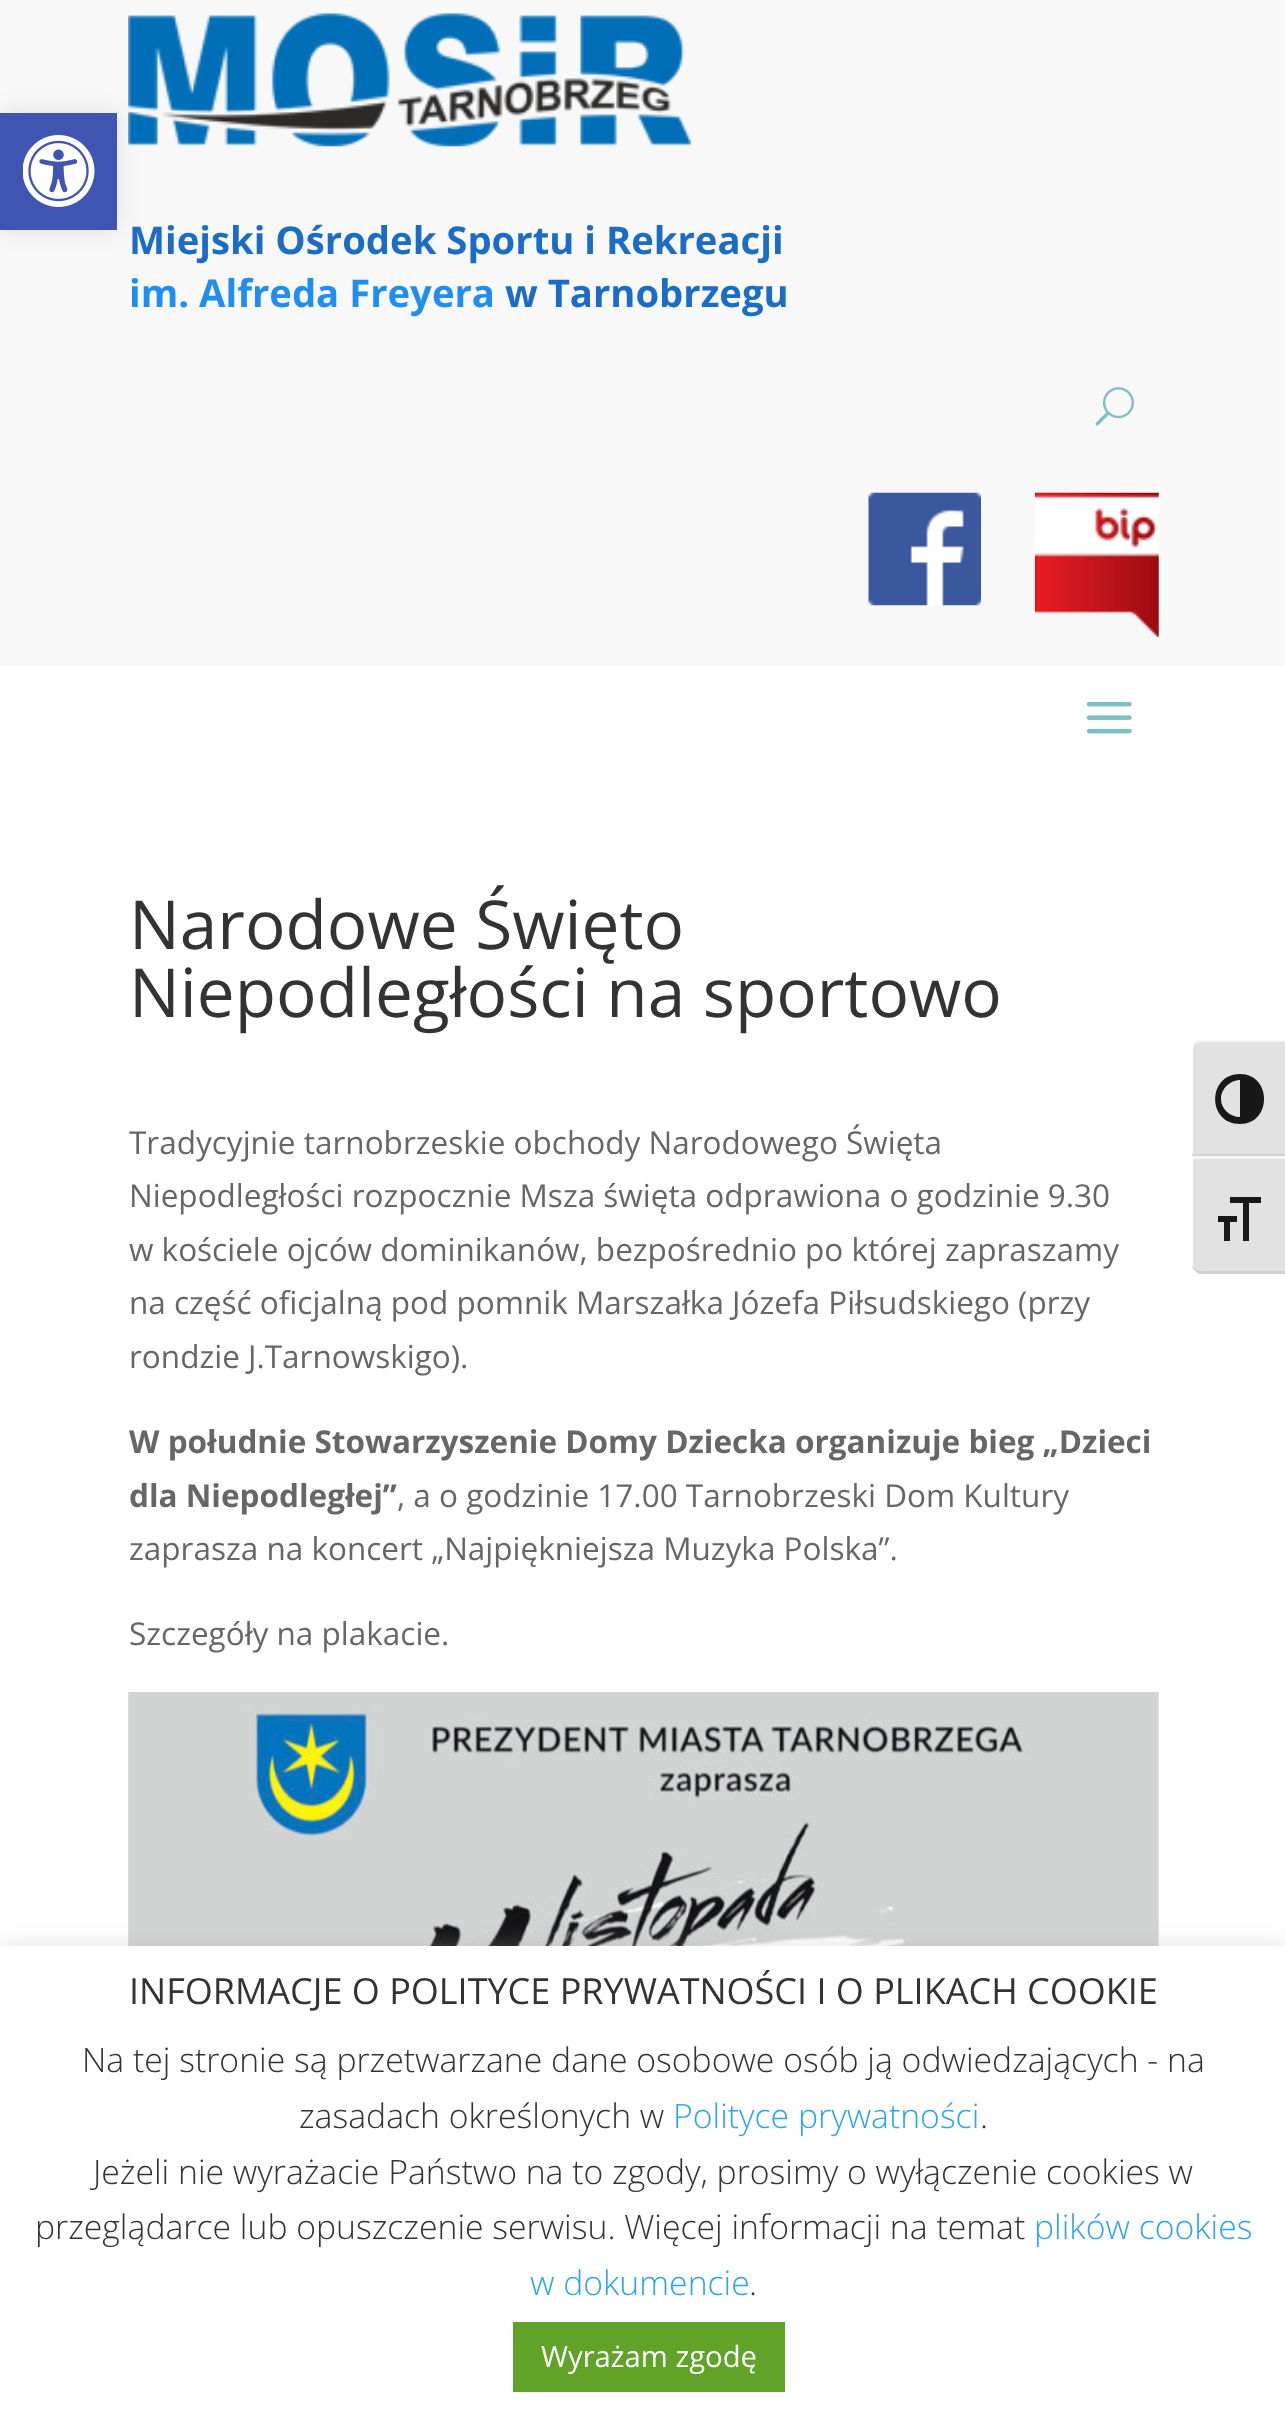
<svg xmlns="http://www.w3.org/2000/svg" xmlns:xlink="http://www.w3.org/1999/xlink" width="1285" height="2417" viewBox="0 0 1285 2417">
<style>
.cls-1{font:bold 38.25px Open Sans;fill:#1b6cc6}
.cls-2{font:bold 38.25px Open Sans;fill:#208df1}
.cls-3{font:67.5px Open Sans;fill:#333333}
.cls-4{font:31.5px Open Sans;fill:#666666}
.cls-5{font:bold 31.5px Open Sans;fill:#666666}
.cls-6{font:36px Open Sans;fill:#333333}
.cls-7{font:300 33.75px Open Sans;fill:#333333}
.cls-8{font:300 33.75px Open Sans;fill:#2ea3f2}
.cls-9{font:29.25px Open Sans;fill:#ffffff}
</style>
<rect width="100%" height="100%" fill="#ffffff"/>
<rect fill="#f8f8f8" x="0" y="0" width="1285" height="666"/>
<image xlink:href="image1.png" x="128" y="13" width="563" height="134"/>
<rect fill="#000000" fill-opacity="0.1" filter="blur(11px)" x="0" y="113" width="117" height="117"/>
<rect fill="#4054b2" x="0" y="113" width="117" height="117"/>
<image xlink:href="image0.png" x="23" y="135" width="72" height="72"/>
<image xlink:href="image2.png" x="1095" y="387" width="39" height="39"/>
<image xlink:href="image3.png" x="868" y="492" width="113" height="114"/>
<image xlink:href="image4.png" x="1035" y="492" width="124" height="145"/>
<image xlink:href="image5.png" x="1086" y="701" width="46" height="33"/>
<image xlink:href="image6.png" x="128" y="1692" width="1031" height="254"/>
<path fill="#e2e2e2" d="M1202 1040H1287V1157H1193V1049C1193 1044 1197 1040 1202 1040Z"/>
<path fill="#f5f5f5" d="M1202 1040H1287V1042H1202C1198 1042 1194 1044 1192 1046C1192 1042 1199 1040 1202 1040Z"/>
<rect fill="#d2d2d2" x="1192" y="1154" width="93" height="2"/>
<path fill="#181818" d="M1240 1074C1207 1074 1207 1124 1240 1124C1272 1124 1272 1074 1240 1074ZM1221 1099C1221 1089 1230 1080 1240 1080V1117C1230 1117 1221 1109 1221 1099Z"/>
<path fill="#e2e2e2" d="M1193 1157H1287V1274H1202C1197 1274 1193 1270 1193 1265Z"/>
<rect fill="#f5f5f5" x="1192" y="1156" width="93" height="3"/>
<path fill="#d2d2d2" d="M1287 1274H1199C1196 1272 1194 1270 1192 1267V1266C1194 1269 1198 1271 1202 1271H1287Z"/>
<path fill="#181818" d="M1218 1216H1237V1222H1230V1241H1224V1222H1218ZM1261 1203H1249V1241H1243V1203H1230V1197H1261Z"/>
<rect fill="#acabab" fill-opacity="0.3" filter="blur(11px)" x="0" y="1944" width="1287" height="473"/>
<rect fill="#ffffff" x="0" y="1946" width="1285" height="471"/>
<rect fill="#61a229" x="513" y="2322" width="272" height="70"/>
<text class="cls-1" x="129" y="254">Miejski Ośrodek Sportu i Rekreacji</text>
<text class="cls-2" x="129" y="307">im. Alfreda Freyera</text>
<text class="cls-1" x="505" y="307">w Tarnobrzegu</text>
<text class="cls-3"><tspan x="129" y="949">Narodowe Święto</tspan><tspan x="129" y="1017">Niepodległości na sportowo</tspan></text>
<text class="cls-4"><tspan x="129" y="1154">Tradycyjnie tarnobrzeskie obchody Narodowego Święta</tspan><tspan x="129" y="1207">Niepodległości rozpocznie Msza święta odprawiona o godzinie 9.30</tspan><tspan x="129" y="1261">w kościele ojców dominikanów, bezpośrednio po której zapraszamy</tspan><tspan x="129" y="1314">na część oficjalną pod pomnik Marszałka Józefa Piłsudskiego (przy</tspan><tspan x="129" y="1368">rondzie J.Tarnowskigo).</tspan></text>
<text class="cls-5"><tspan x="129" y="1453">W południe Stowarzyszenie Domy Dziecka organizuje bieg „Dzieci</tspan><tspan x="129" y="1507">dla Niepodległej”</tspan></text>
<text class="cls-4" x="397" y="1507">, a o godzinie 17.00 Tarnobrzeski Dom Kultury</text>
<text class="cls-4" x="129" y="1560">zaprasza na koncert „Najpiękniejsza Muzyka Polska”.</text>
<text class="cls-4" x="129" y="1645">Szczegóły na plakacie.</text>
<text class="cls-6" x="129" y="2004">INFORMACJE O POLITYCE PRYWATNOŚCI I O PLIKACH COOKIE</text>
<text class="cls-7" x="82" y="2072">Na tej stronie są przetwarzane dane osobowe osób ją odwiedzających - na</text>
<text class="cls-7" x="299" y="2128">zasadach określonych w</text>
<text class="cls-8" x="673" y="2128">Polityce prywatności</text>
<text class="cls-7" x="980" y="2128">.</text>
<text class="cls-7" x="93" y="2184">Jeżeli nie wyrażacie Państwo na to zgody, prosimy o wyłączenie cookies w</text>
<text class="cls-7" x="35" y="2239">przeglądarce lub opuszczenie serwisu. Więcej informacji na temat</text>
<text class="cls-8" x="1034" y="2239">plików cookies</text>
<text class="cls-8" x="530" y="2295">w dokumencie</text>
<text class="cls-7" x="749" y="2295">.</text>
<text class="cls-9" x="541" y="2367">Wyrażam zgodę</text>
</svg>
